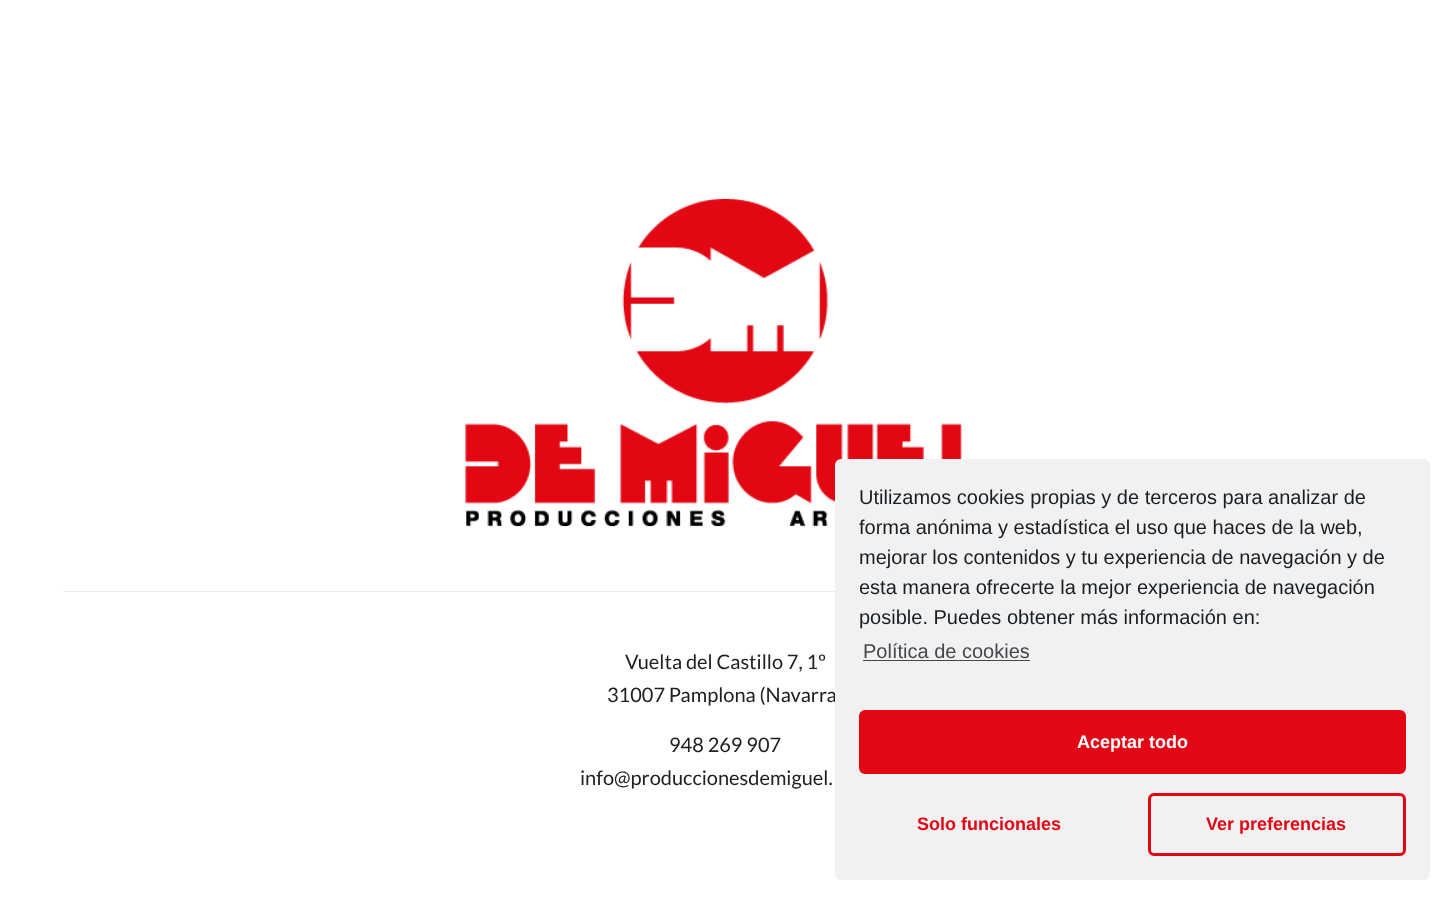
<svg xmlns="http://www.w3.org/2000/svg" xmlns:xlink="http://www.w3.org/1999/xlink" width="1450" height="900" viewBox="0 0 1450 900">
<style>
.cls-1{font:20px Lato;fill:#212121}
.cls-2{font:20px Liberation Sans;fill:#191e23}
.cls-3{font:20px Liberation Sans;fill:#44484c}
.cls-4{font:bold 18px Liberation Sans;fill:#ffffff}
.cls-5{font:bold 18px Liberation Sans;fill:#e30615}
</style>
<rect width="100%" height="100%" fill="#ffffff"/>
<image xlink:href="image0.png" x="465" y="198" width="497" height="329"/>
<rect fill="#ebebeb" x="63" y="591" width="772" height="1"/>
<text class="cls-1" x="625" y="669">Vuelta del Castillo 7, 1º</text>
<text class="cls-1" x="607" y="702">31007 Pamplona (Navarra</text>
<text class="cls-1" x="669" y="752">948 269 907</text>
<text class="cls-1" x="580" y="785">info@produccionesdemiguel.</text>
<rect fill="#f1f1f1" x="835" y="459" width="595" height="421" rx="6"/>
<text class="cls-2"><tspan x="859" y="504">Utilizamos cookies propias y de terceros para analizar de</tspan><tspan x="859" y="534">forma anónima y estadística el uso que haces de la web,</tspan><tspan x="859" y="564">mejorar los contenidos y tu experiencia de navegación y de</tspan><tspan x="859" y="594">esta manera ofrecerte la mejor experiencia de navegación</tspan><tspan x="859" y="624">posible. Puedes obtener más información en:</tspan></text>
<text class="cls-3" x="863" y="658">Política de cookies</text>
<rect fill="#44484c" x="863" y="660" width="167" height="1"/>
<rect fill="#e30615" stroke="#e30615" stroke-width="3" x="860.5" y="711.5" width="544" height="61" rx="4.5"/>
<text class="cls-4" x="1077" y="748">Aceptar todo</text>
<text class="cls-5" x="917" y="830">Solo funcionales</text>
<rect fill="none" stroke="#e30615" stroke-width="3" x="1149.5" y="794.5" width="255" height="60" rx="4.5"/>
<text class="cls-5" x="1206" y="830">Ver preferencias</text>
</svg>
